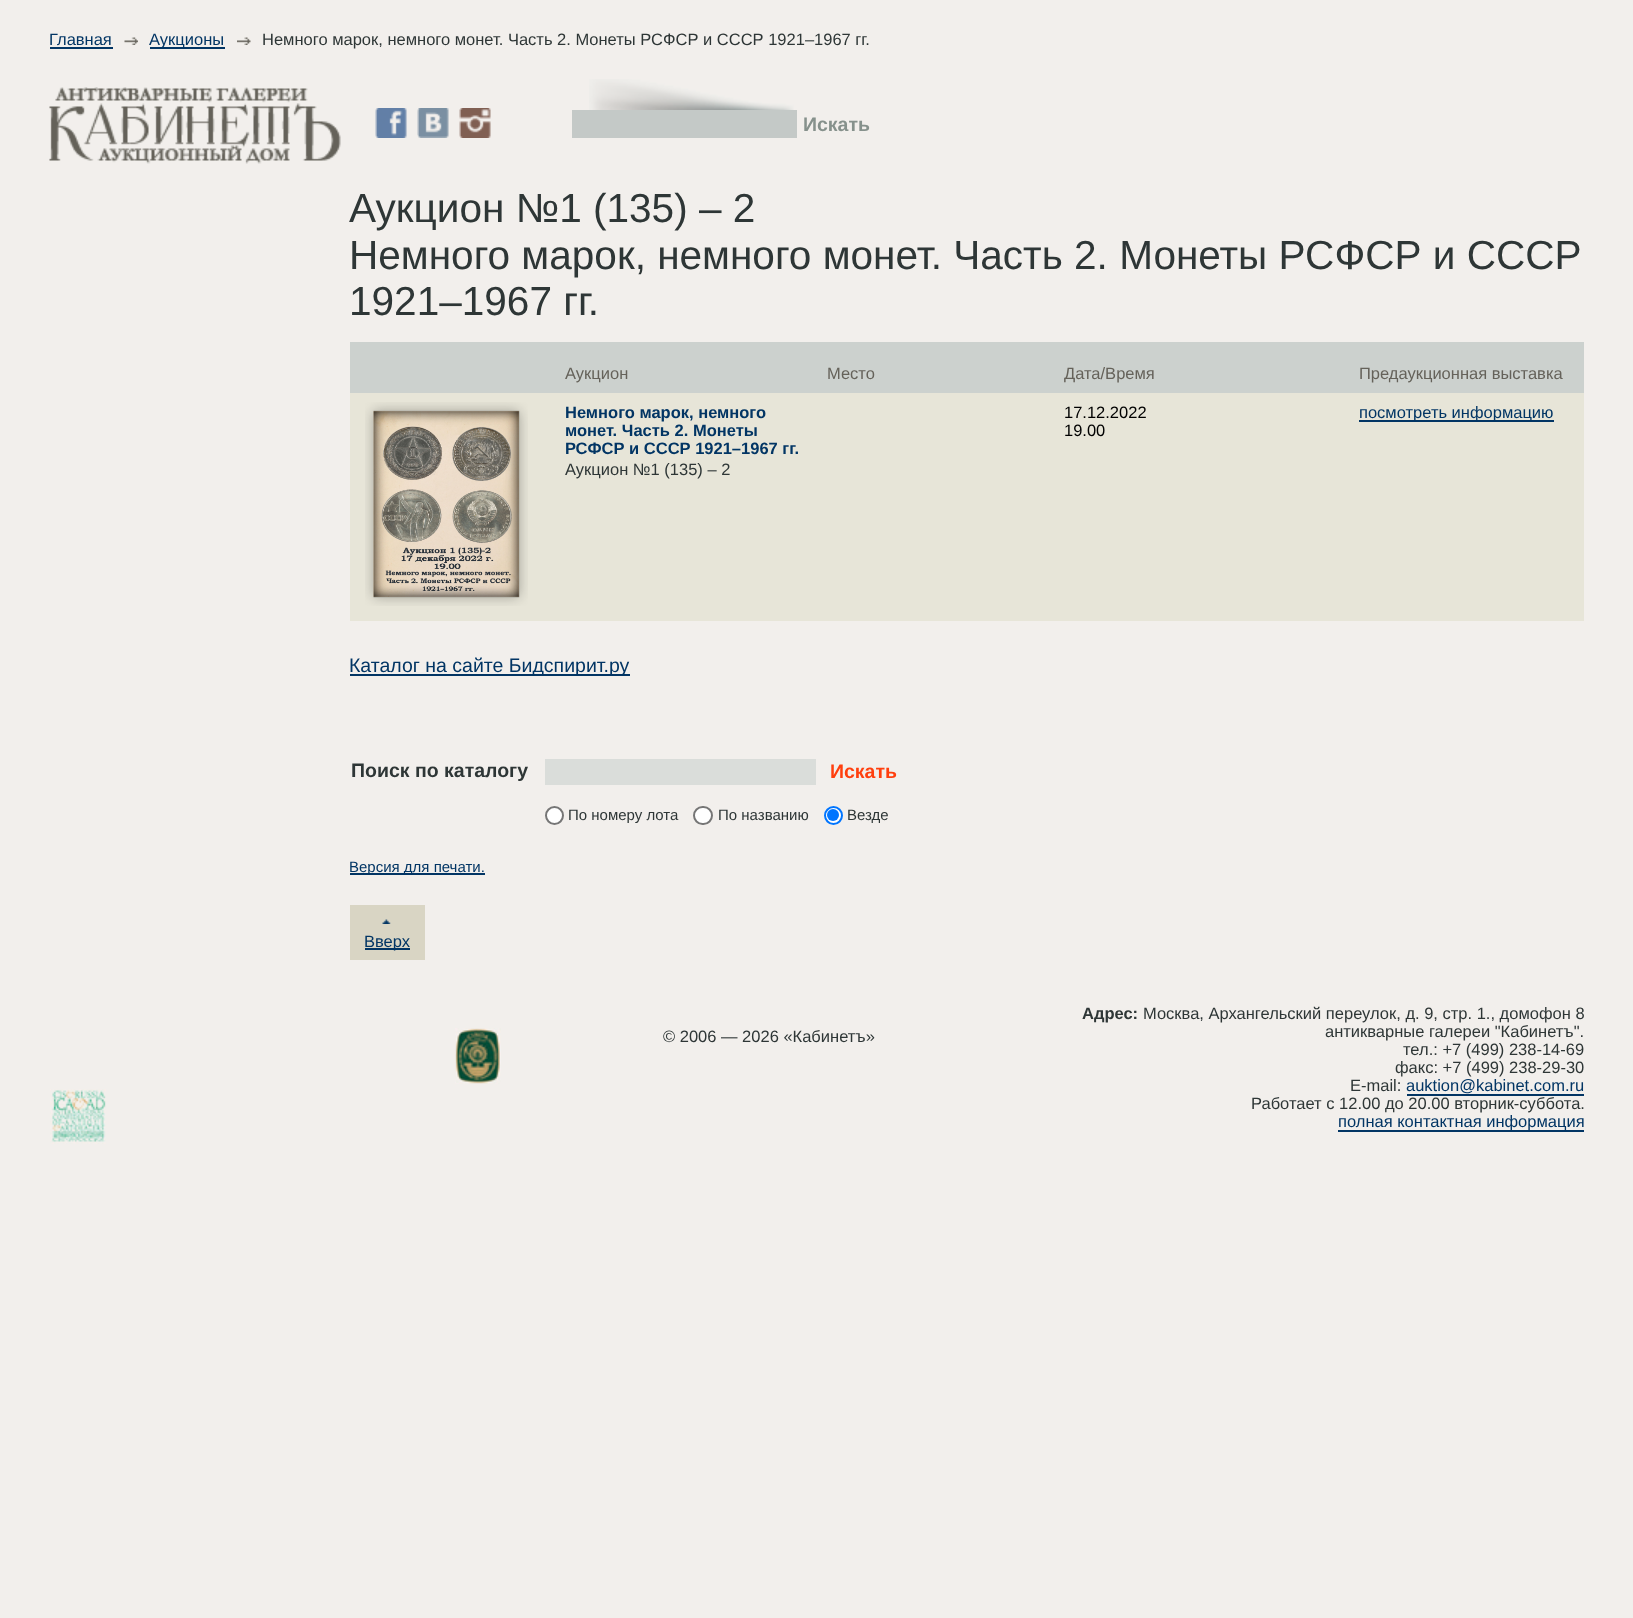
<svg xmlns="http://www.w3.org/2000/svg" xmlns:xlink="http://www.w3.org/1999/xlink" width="1633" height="1618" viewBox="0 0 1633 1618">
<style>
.cls-1{font:16.5px Liberation Sans;fill:#023564}
.cls-2{font:16.5px Liberation Sans;fill:#2e3636}
.cls-3{font:bold 19.5px Liberation Sans;fill:#86918c}
.cls-4{font:40.55px Liberation Sans;fill:#2e3636}
.cls-5{font:16.5px Liberation Sans;fill:#65625a}
.cls-6{font:bold 16.5px Liberation Sans;fill:#023564}
.cls-7{font:16.5px Liberation Sans;fill:#000000}
.cls-8{font:19.5px Liberation Sans;fill:#023564}
.cls-9{font:bold 19.5px Liberation Sans;fill:#2e3636}
.cls-10{font:bold 19.5px Liberation Sans;fill:#ff3f0e}
.cls-11{font:15px Liberation Sans;fill:#2e3636}
.cls-12{font:15px Liberation Sans;fill:#023564}
.cls-13{font:bold 16.5px Liberation Sans;fill:#2e3636}
</style>
<rect width="100%" height="100%" fill="#f2efec"/>
<image xlink:href="image0.png" x="124" y="37" width="14" height="8"/>
<rect fill="#023564" x="50" y="47" width="63" height="2"/>
<image xlink:href="image1.png" x="237" y="37" width="14" height="8"/>
<rect fill="#023564" x="150" y="47" width="75" height="2"/>
<image xlink:href="image2.png" x="49" y="87" width="292" height="77"/>
<image xlink:href="image3.png" x="375" y="108" width="32" height="30"/>
<image xlink:href="image4.png" x="417" y="108" width="32" height="30"/>
<image xlink:href="image5.png" x="459" y="108" width="32" height="30"/>
<image xlink:href="image6.png" x="589" y="79" width="205" height="31"/>
<rect fill="#c4c9c7" x="572" y="110" width="225" height="28"/>
<rect fill="#ccd1ce" x="350" y="342" width="1234" height="51"/>
<rect fill="#e7e5d8" x="350" y="393" width="1234" height="228"/>
<image xlink:href="image8.png" x="373" y="411" width="146" height="186"/>
<image xlink:href="image7.png" x="365" y="402" width="163" height="204"/>
<rect fill="#023564" x="1359" y="420" width="195" height="2"/>
<rect fill="#023564" x="350" y="674" width="280" height="2"/>
<rect fill="#daddda" x="545" y="759" width="271" height="26"/>
<circle fill="#ffffff" stroke="#767676" stroke-width="2" cx="554.5" cy="815.5" r="8.5"/>
<rect fill="#ffffff" stroke="#767676" stroke-width="2" x="694" y="807" width="18" height="17" rx="8.5"/>
<circle fill="#ffffff" stroke="#0075ff" stroke-width="2" cx="833.5" cy="815.5" r="8.5"/>
<circle fill="#0075ff" cx="833" cy="815" r="6"/>
<rect fill="#023564" x="350" y="873" width="135" height="2"/>
<rect fill="#d9d5c4" x="350" y="905" width="75" height="55"/>
<image xlink:href="image9.png" x="382" y="919" width="9" height="5"/>
<rect fill="#023564" x="365" y="948" width="45" height="2"/>
<image xlink:href="image10.png" x="455" y="1028" width="46" height="56"/>
<image xlink:href="image11.png" x="50" y="1089" width="56" height="55"/>
<rect fill="#023564" x="1407" y="1094" width="177" height="2"/>
<rect fill="#023564" x="1338" y="1130" width="246" height="2"/>
<text class="cls-1" x="49" y="45">Главная</text>
<text class="cls-1" x="149" y="45">Аукционы</text>
<text class="cls-2" x="262" y="45">Немного марок, немного монет. Часть 2. Монеты РСФСР и СССР 1921–1967 гг.</text>
<text class="cls-3" x="803" y="131">Искать</text>
<text class="cls-4"><tspan x="349" y="222">Аукцион №1 (135) – 2</tspan><tspan x="349" y="269">Немного марок, немного монет. Часть 2. Монеты РСФСР и СССР</tspan><tspan x="349" y="315">1921–1967 гг.</tspan></text>
<text class="cls-5" x="565" y="379">Аукцион</text>
<text class="cls-5" x="827" y="379">Место</text>
<text class="cls-5" x="1064" y="379">Дата/Время</text>
<text class="cls-5" x="1359" y="379">Предаукционная выставка</text>
<text class="cls-6"><tspan x="565" y="418">Немного марок, немного</tspan><tspan x="565" y="436">монет. Часть 2. Монеты</tspan><tspan x="565" y="454">РСФСР и СССР 1921–1967 гг.</tspan></text>
<text class="cls-2" x="565" y="475">Аукцион №1 (135) – 2</text>
<text class="cls-7"><tspan x="1064" y="418">17.12.2022</tspan><tspan x="1064" y="436">19.00</tspan></text>
<text class="cls-1" x="1359" y="418">посмотреть информацию</text>
<text class="cls-8" x="349" y="672">Каталог на сайте Бидспирит.ру</text>
<text class="cls-9" x="351" y="777">Поиск по каталогу</text>
<text class="cls-10" x="830" y="778">Искать</text>
<text class="cls-11" x="568" y="820">По номеру лота</text>
<text class="cls-11" x="718" y="820">По названию</text>
<text class="cls-11" x="847" y="820">Везде</text>
<text class="cls-12" x="349" y="872">Версия для печати.</text>
<text class="cls-1" x="364" y="947">Вверх</text>
<text class="cls-2" x="663" y="1042">© 2006 — 2026 «Кабинетъ»</text>
<text class="cls-13" x="1082" y="1019">Адрес:</text>
<text class="cls-2" x="1143" y="1019">Москва, Архангельский переулок, д. 9, стр. 1., домофон 8</text>
<text class="cls-2" x="1325" y="1037">антикварные галереи "Кабинетъ".</text>
<text class="cls-2" x="1403" y="1055">тел.: +7 (499) 238-14-69</text>
<text class="cls-2" x="1395" y="1073">факс: +7 (499) 238-29-30</text>
<text class="cls-2" x="1350" y="1091">E-mail:</text>
<text class="cls-1" x="1406" y="1091">auktion@kabinet.com.ru</text>
<text class="cls-2" x="1251" y="1109">Работает с 12.00 до 20.00 вторник-суббота.</text>
<text class="cls-1" x="1338" y="1127">полная контактная информация</text>
</svg>
